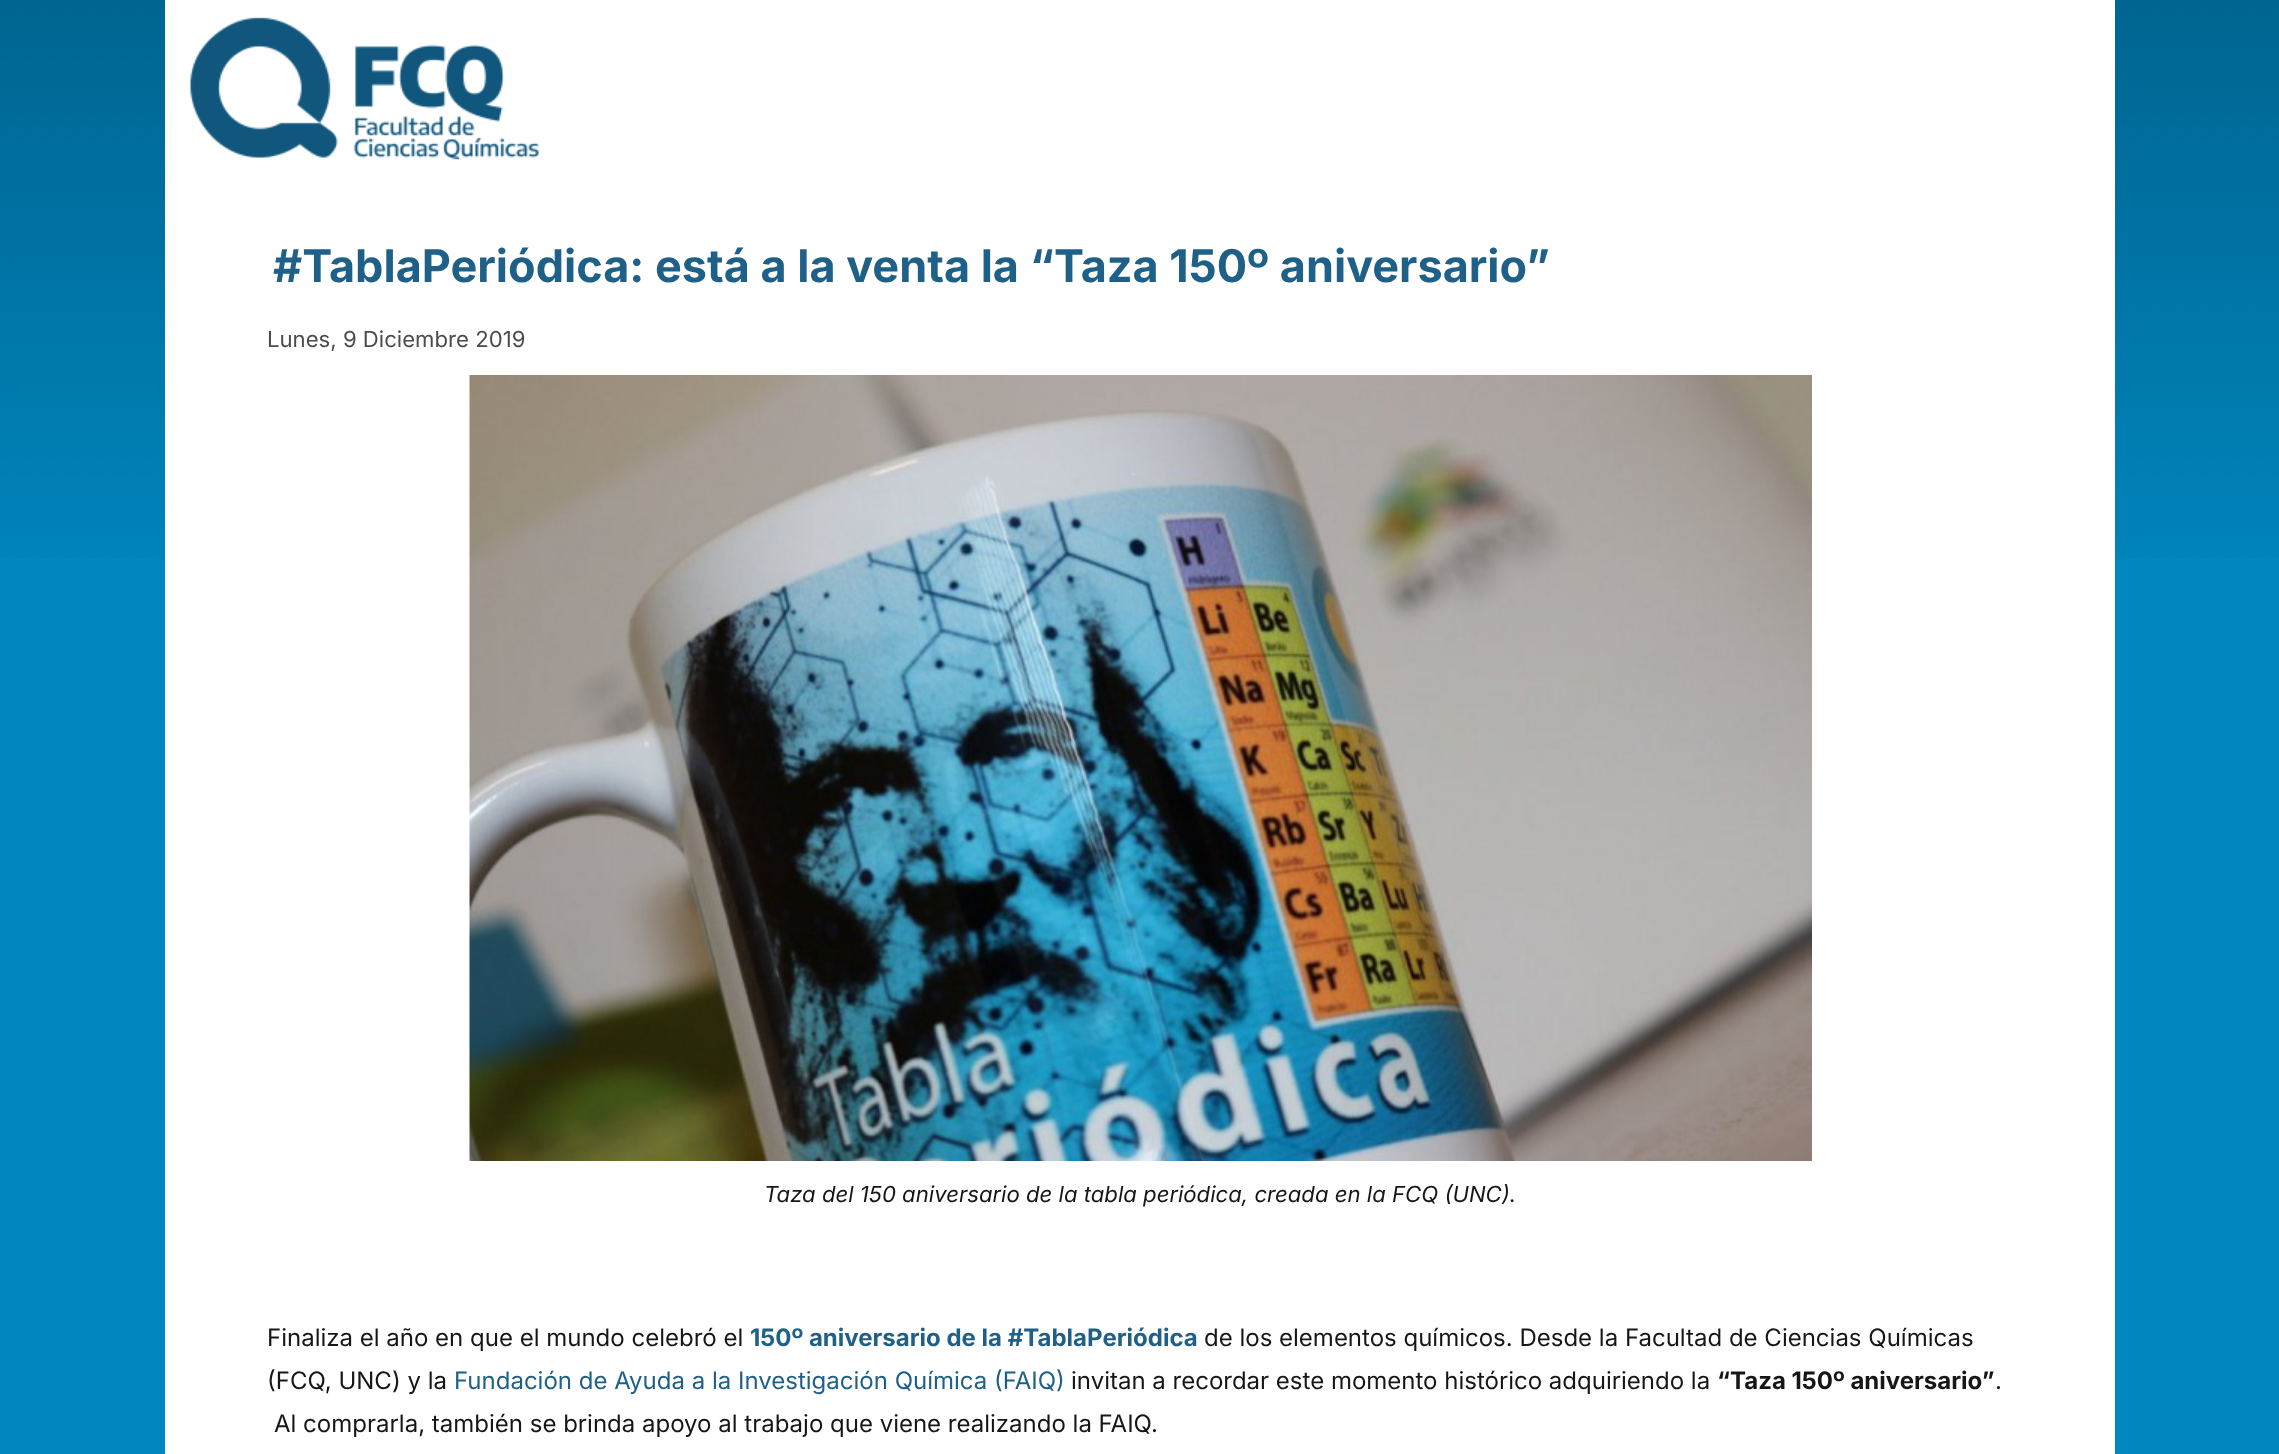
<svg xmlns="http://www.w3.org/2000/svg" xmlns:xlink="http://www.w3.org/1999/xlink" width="2279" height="1454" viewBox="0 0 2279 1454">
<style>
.cls-1{font:bold 45px Inter;fill:#1f6089}
.cls-2{font:22.15px Inter;fill:#4c4c4c}
.cls-3{font:italic 22.15px Inter;fill:#161616}
.cls-4{font:24px Inter;fill:#161616}
.cls-5{font:bold 24px Inter;fill:#1f6089}
.cls-6{font:24px Inter;fill:#1f6089}
.cls-7{font:bold 24px Inter;fill:#161616}
</style>
<rect width="100%" height="100%" fill="#0087bf"/>
<image xlink:href="image0.png" x="0" y="0" width="2279" height="558"/>
<rect fill="#ffffff" x="165" y="0" width="1950" height="1454"/>
<image xlink:href="image1.png" x="190" y="17" width="349" height="143"/>
<image xlink:href="image2.png" x="469" y="375" width="1343" height="786"/>
<text class="cls-1" x="273" y="282">#TablaPeriódica: está a la venta la “Taza 150º aniversario”</text>
<text class="cls-2" x="267" y="347">Lunes, 9 Diciembre 2019</text>
<text class="cls-3" x="764" y="1202">Taza del 150 aniversario de la tabla periódica, creada en la FCQ (UNC).</text>
<text class="cls-4" x="267" y="1346">Finaliza el año en que el mundo celebró el</text>
<text class="cls-5" x="750" y="1346">150º aniversario de la #TablaPeriódica</text>
<text class="cls-4" x="1204" y="1346">de los elementos químicos. Desde la Facultad de Ciencias Químicas</text>
<text class="cls-4" x="267" y="1389">(FCQ, UNC) y la</text>
<text class="cls-6" x="454" y="1389">Fundación de Ayuda a la Investigación Química (FAIQ)</text>
<text class="cls-4" x="1071" y="1389">invitan a recordar este momento histórico adquiriendo la</text>
<text class="cls-7" x="1717" y="1389">“Taza 150º aniversario”</text>
<text class="cls-4" x="1995" y="1389">.</text>
<text class="cls-4" x="274" y="1432">Al comprarla, también se brinda apoyo al trabajo que viene realizando la FAIQ.</text>
</svg>
